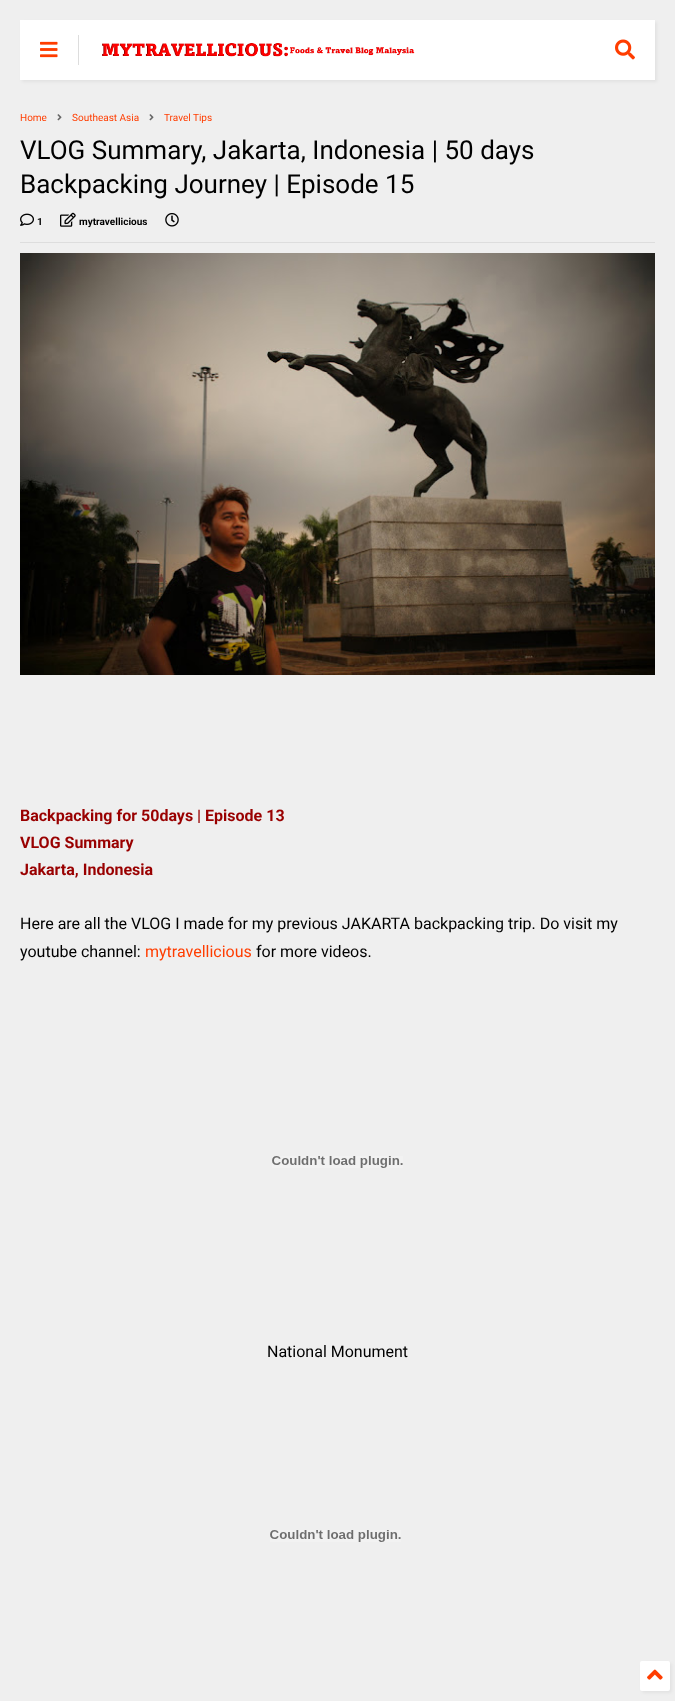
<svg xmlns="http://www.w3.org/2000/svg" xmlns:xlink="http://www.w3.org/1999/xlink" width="675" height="1701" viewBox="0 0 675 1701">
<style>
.cls-1{font:10px Roboto;fill:#ff3d00}
.cls-2{font:26px Roboto;fill:#000000}
.cls-3{font:bold 10px Roboto;fill:#000000}
.cls-4{font:bold 16px Roboto;fill:#990000}
.cls-5{font:16px Roboto;fill:#000000}
.cls-6{font:16px Roboto;fill:#ff3d00}
</style>
<rect width="100%" height="100%" fill="#efefef"/>
<rect fill="#000000" fill-opacity="0.05" filter="blur(1.5px)" x="22" y="22" width="635" height="60"/>
<rect fill="#ffffff" x="20" y="20" width="635" height="60"/>
<image xlink:href="image0.png" x="40" y="41" width="18" height="17"/>
<rect fill="#dddddd" x="78" y="35" width="1" height="30"/>
<image xlink:href="image1.png" x="102" y="43" width="313" height="14"/>
<image xlink:href="image2.png" x="615" y="39" width="20" height="21"/>
<image xlink:href="image3.png" x="57" y="114" width="5" height="7"/>
<image xlink:href="image3.png" x="149" y="114" width="5" height="7"/>
<rect fill="#dddddd" x="20" y="242" width="635" height="1"/>
<image xlink:href="image4.png" x="20" y="213" width="14" height="13"/>
<image xlink:href="image5.png" x="60" y="212" width="16" height="15"/>
<image xlink:href="image6.png" x="165" y="213" width="14" height="14"/>
<image xlink:href="image7.png" x="20" y="253" width="635" height="422"/>
<image xlink:href="image8.png" x="272" y="1156" width="131" height="12"/>
<image xlink:href="image9.png" x="270" y="1530" width="131" height="12"/>
<rect fill="#000000" fill-opacity="0.05" filter="blur(1.5px)" x="642" y="1663" width="30" height="30" rx="2"/>
<rect fill="#ffffff" x="640" y="1661" width="30" height="30" rx="2"/>
<image xlink:href="image10.png" x="647" y="1669" width="16" height="11"/>
<text class="cls-1" x="20" y="121">Home</text>
<text class="cls-1" x="72" y="121">Southeast Asia</text>
<text class="cls-1" x="164" y="121">Travel Tips</text>
<text class="cls-2"><tspan x="20" y="159">VLOG Summary, Jakarta, Indonesia | 50 days</tspan><tspan x="20" y="193">Backpacking Journey | Episode 15</tspan></text>
<text class="cls-3" x="37" y="225">1</text>
<text class="cls-3" x="79" y="225">mytravellicious</text>
<text class="cls-4"><tspan x="20" y="821">Backpacking for 50days | Episode 13</tspan><tspan x="20" y="848">VLOG Summary</tspan><tspan x="20" y="875">Jakarta, Indonesia</tspan></text>
<text class="cls-5"><tspan x="20" y="929">Here are all the VLOG I made for my previous JAKARTA backpacking trip. Do visit my</tspan><tspan x="20" y="957">youtube channel:</tspan></text>
<text class="cls-6" x="145" y="957">mytravellicious</text>
<text class="cls-5" x="256" y="957">for more videos.</text>
<text class="cls-5" x="267" y="1357">National Monument</text>
</svg>
